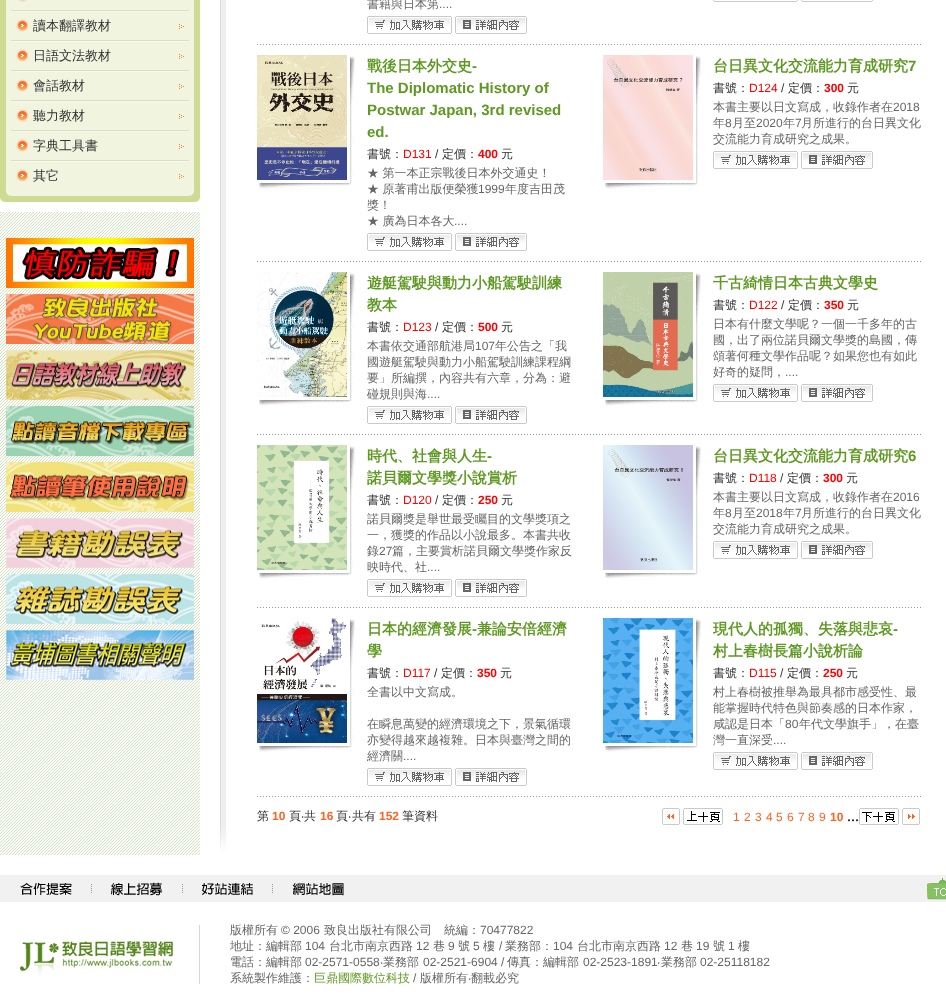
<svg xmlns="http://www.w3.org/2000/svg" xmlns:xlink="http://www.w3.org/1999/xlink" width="946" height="998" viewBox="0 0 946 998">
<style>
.cls-1{font:500 13px WenQuanYi Zen Hei;fill:#333333}
.cls-2{font:500 12px WenQuanYi Zen Hei;fill:#666666}
.cls-3{font:12px Liberation Sans;fill:#666666}
.cls-4{font:bold 15px WenQuanYi Zen Hei;fill:#5f9922}
.cls-5{font:bold 15px Liberation Sans;fill:#5f9922}
.cls-6{font:500 12px WenQuanYi Zen Hei;fill:#333333}
.cls-7{font:12px Liberation Sans;fill:#ff0000}
.cls-8{font:12px Liberation Sans;fill:#333333}
.cls-9{font:bold 12px Liberation Sans;fill:#ff0000}
.cls-10{font:bold 12px Liberation Sans;fill:#fd6421}
.cls-11{font:12px Noto Sans;fill:#333333}
.cls-12{font:12px Liberation Sans;fill:#fd6421}
.cls-13{font:16px Liberation Serif;fill:#000000}
.cls-14{font:12px Noto Sans;fill:#666666}
.cls-15{font:500 12px WenQuanYi Zen Hei;fill:#5f9922}
</style>
<rect width="100%" height="100%" fill="#ffffff"/>
<image xlink:href="image0.png" x="0" y="212" width="200" height="643"/>
<image xlink:href="image1.png" x="0" y="0" width="200" height="190"/>
<image xlink:href="image2.png" x="18" y="0" width="9" height="2"/>
<image xlink:href="image3.png" x="11" y="10" width="178" height="2"/>
<image xlink:href="image4.png" x="16" y="19" width="13" height="13"/>
<image xlink:href="image5.png" x="179" y="24" width="5" height="5"/>
<image xlink:href="image3.png" x="11" y="40" width="178" height="2"/>
<image xlink:href="image4.png" x="16" y="49" width="13" height="13"/>
<image xlink:href="image5.png" x="179" y="54" width="5" height="5"/>
<image xlink:href="image3.png" x="11" y="70" width="178" height="2"/>
<image xlink:href="image4.png" x="16" y="79" width="13" height="13"/>
<image xlink:href="image5.png" x="179" y="84" width="5" height="5"/>
<image xlink:href="image3.png" x="11" y="100" width="178" height="2"/>
<image xlink:href="image4.png" x="16" y="109" width="13" height="13"/>
<image xlink:href="image5.png" x="179" y="114" width="5" height="5"/>
<image xlink:href="image3.png" x="11" y="130" width="178" height="2"/>
<image xlink:href="image4.png" x="16" y="139" width="13" height="13"/>
<image xlink:href="image5.png" x="179" y="144" width="5" height="5"/>
<image xlink:href="image3.png" x="11" y="160" width="178" height="2"/>
<image xlink:href="image4.png" x="16" y="169" width="13" height="13"/>
<image xlink:href="image5.png" x="179" y="174" width="5" height="5"/>
<image xlink:href="image6.png" x="0" y="190" width="200" height="12"/>
<image xlink:href="image7.png" x="6" y="238" width="188" height="50"/>
<image xlink:href="image8.png" x="6" y="294" width="188" height="50"/>
<image xlink:href="image9.png" x="6" y="350" width="188" height="50"/>
<image xlink:href="image10.png" x="6" y="406" width="188" height="50"/>
<image xlink:href="image11.png" x="6" y="462" width="188" height="50"/>
<image xlink:href="image12.png" x="6" y="518" width="188" height="50"/>
<image xlink:href="image13.png" x="6" y="574" width="188" height="50"/>
<image xlink:href="image14.png" x="6" y="630" width="188" height="50"/>
<rect fill="#eeeeee" x="221" y="0" width="5" height="825"/>
<rect fill="#dadada" x="220" y="0" width="1" height="825"/>
<image xlink:href="image15.png" x="367" y="16" width="85" height="18"/>
<image xlink:href="image16.png" x="455" y="16" width="72" height="18"/>
<image xlink:href="image17.png" x="713" y="0" width="85" height="2"/>
<image xlink:href="image18.png" x="801" y="0" width="72" height="2"/>
<image xlink:href="image19.png" x="257" y="44" width="664" height="1"/>
<image xlink:href="image20.png" x="257" y="55" width="90" height="125"/>
<image xlink:href="image21.png" x="350" y="56" width="5" height="124"/>
<image xlink:href="image22.png" x="259" y="180" width="93" height="9"/>
<image xlink:href="image15.png" x="367" y="233" width="85" height="18"/>
<image xlink:href="image16.png" x="455" y="233" width="72" height="18"/>
<image xlink:href="image23.png" x="603" y="55" width="90" height="125"/>
<image xlink:href="image21.png" x="696" y="56" width="5" height="124"/>
<image xlink:href="image22.png" x="605" y="180" width="93" height="9"/>
<image xlink:href="image15.png" x="713" y="151" width="85" height="18"/>
<image xlink:href="image16.png" x="801" y="151" width="72" height="18"/>
<image xlink:href="image19.png" x="257" y="261" width="664" height="1"/>
<image xlink:href="image24.png" x="257" y="272" width="90" height="125"/>
<image xlink:href="image21.png" x="350" y="273" width="5" height="124"/>
<image xlink:href="image22.png" x="259" y="397" width="93" height="9"/>
<image xlink:href="image15.png" x="367" y="406" width="85" height="18"/>
<image xlink:href="image16.png" x="455" y="406" width="72" height="18"/>
<image xlink:href="image25.png" x="603" y="272" width="90" height="125"/>
<image xlink:href="image21.png" x="696" y="273" width="5" height="124"/>
<image xlink:href="image22.png" x="605" y="397" width="93" height="9"/>
<image xlink:href="image15.png" x="713" y="384" width="85" height="18"/>
<image xlink:href="image16.png" x="801" y="384" width="72" height="18"/>
<image xlink:href="image19.png" x="257" y="434" width="664" height="1"/>
<image xlink:href="image26.png" x="257" y="445" width="90" height="125"/>
<image xlink:href="image21.png" x="350" y="446" width="5" height="124"/>
<image xlink:href="image22.png" x="259" y="570" width="93" height="9"/>
<image xlink:href="image15.png" x="367" y="579" width="85" height="18"/>
<image xlink:href="image16.png" x="455" y="579" width="72" height="18"/>
<image xlink:href="image27.png" x="603" y="445" width="90" height="125"/>
<image xlink:href="image21.png" x="696" y="446" width="5" height="124"/>
<image xlink:href="image22.png" x="605" y="570" width="93" height="9"/>
<image xlink:href="image15.png" x="713" y="541" width="85" height="18"/>
<image xlink:href="image16.png" x="801" y="541" width="72" height="18"/>
<image xlink:href="image19.png" x="257" y="607" width="664" height="1"/>
<image xlink:href="image28.png" x="257" y="618" width="90" height="125"/>
<image xlink:href="image21.png" x="350" y="619" width="5" height="124"/>
<image xlink:href="image22.png" x="259" y="743" width="93" height="9"/>
<image xlink:href="image15.png" x="367" y="768" width="85" height="18"/>
<image xlink:href="image16.png" x="455" y="768" width="72" height="18"/>
<image xlink:href="image29.png" x="603" y="618" width="90" height="125"/>
<image xlink:href="image21.png" x="696" y="619" width="5" height="124"/>
<image xlink:href="image22.png" x="605" y="743" width="93" height="9"/>
<image xlink:href="image15.png" x="713" y="752" width="85" height="18"/>
<image xlink:href="image16.png" x="801" y="752" width="72" height="18"/>
<image xlink:href="image19.png" x="257" y="796" width="664" height="1"/>
<image xlink:href="image30.png" x="662" y="808" width="18" height="17"/>
<image xlink:href="image31.png" x="683" y="808" width="40" height="17"/>
<image xlink:href="image32.png" x="859" y="808" width="40" height="17"/>
<image xlink:href="image33.png" x="902" y="808" width="18" height="17"/>
<image xlink:href="image34.png" x="220" y="825" width="6" height="30"/>
<rect fill="#f1f1f1" x="0" y="875" width="946" height="27"/>
<image xlink:href="image35.png" x="20" y="883" width="52" height="12"/>
<image xlink:href="image36.png" x="91" y="884" width="1" height="9"/>
<image xlink:href="image37.png" x="111" y="882" width="52" height="14"/>
<image xlink:href="image36.png" x="182" y="884" width="1" height="9"/>
<image xlink:href="image38.png" x="202" y="883" width="51" height="12"/>
<image xlink:href="image36.png" x="272" y="884" width="1" height="9"/>
<image xlink:href="image39.png" x="292" y="883" width="52" height="13"/>
<image xlink:href="image40.png" x="927" y="878" width="19" height="22"/>
<image xlink:href="image41.png" x="20" y="925" width="180" height="59"/>
<text class="cls-1" x="33" y="30">讀本翻譯教材</text>
<text class="cls-1" x="33" y="60">日語文法教材</text>
<text class="cls-1" x="33" y="90">會話教材</text>
<text class="cls-1" x="33" y="120">聽力教材</text>
<text class="cls-1" x="33" y="150">字典工具書</text>
<text class="cls-1" x="33" y="180">其它</text>
<text class="cls-2" x="367" y="8">書籍與日本第</text>
<text class="cls-3" x="439" y="8">....</text>
<text class="cls-4" x="367" y="71">戰後日本外交史</text>
<text class="cls-5" x="472" y="71">-</text>
<text class="cls-5"><tspan x="367" y="93">The Diplomatic History of</tspan><tspan x="367" y="115">Postwar Japan, 3rd revised</tspan><tspan x="367" y="137">ed.</tspan></text>
<text class="cls-6" x="367" y="158">書號：</text>
<text class="cls-7" x="403" y="158">D131</text>
<text class="cls-8" x="435" y="158">/</text>
<text class="cls-6" x="442" y="158">定價：</text>
<text class="cls-9" x="478" y="158">400</text>
<text class="cls-6" x="501" y="158">元</text>
<text class="cls-2"><tspan x="367" y="177">★ 第一本正宗戰後日本外交通史！</tspan><tspan x="367" y="193">★ 原著甫出版便榮獲</tspan></text>
<text class="cls-3" x="478" y="193">1999</text>
<text class="cls-2" x="505" y="193">年度吉田茂</text>
<text class="cls-2"><tspan x="367" y="209">獎！</tspan><tspan x="367" y="225">★ 廣為日本各大</tspan></text>
<text class="cls-3" x="454" y="225">....</text>
<text class="cls-4" x="713" y="71">台日異文化交流能力育成研究</text>
<text class="cls-5" x="908" y="71">7</text>
<text class="cls-6" x="713" y="92">書號：</text>
<text class="cls-7" x="749" y="92">D124</text>
<text class="cls-8" x="781" y="92">/</text>
<text class="cls-6" x="788" y="92">定價：</text>
<text class="cls-9" x="824" y="92">300</text>
<text class="cls-6" x="847" y="92">元</text>
<text class="cls-2" x="713" y="111">本書主要以日文寫成，收錄作者在</text>
<text class="cls-3" x="893" y="111">2018</text>
<text class="cls-2" x="713" y="127">年</text>
<text class="cls-3" x="725" y="127">8</text>
<text class="cls-2" x="732" y="127">月至</text>
<text class="cls-3" x="756" y="127">2020</text>
<text class="cls-2" x="783" y="127">年</text>
<text class="cls-3" x="795" y="127">7</text>
<text class="cls-2" x="801" y="127">月所進行的台日異文化</text>
<text class="cls-2" x="713" y="143">交流能力育成研究之成果。</text>
<text class="cls-4"><tspan x="367" y="288">遊艇駕駛與動力小船駕駛訓練</tspan><tspan x="367" y="310">教本</tspan></text>
<text class="cls-6" x="367" y="331">書號：</text>
<text class="cls-7" x="403" y="331">D123</text>
<text class="cls-8" x="435" y="331">/</text>
<text class="cls-6" x="442" y="331">定價：</text>
<text class="cls-9" x="478" y="331">500</text>
<text class="cls-6" x="501" y="331">元</text>
<text class="cls-2" x="367" y="350">本書依交通部航港局</text>
<text class="cls-3" x="475" y="350">107</text>
<text class="cls-2" x="495" y="350">年公告之「我</text>
<text class="cls-2"><tspan x="367" y="366">國遊艇駕駛與動力小船駕駛訓練課程綱</tspan><tspan x="367" y="382">要」所編撰，內容共有六章，分為：避</tspan><tspan x="367" y="398">碰規則與海</tspan></text>
<text class="cls-3" x="427" y="398">....</text>
<text class="cls-4" x="713" y="288">千古綺情日本古典文學史</text>
<text class="cls-6" x="713" y="309">書號：</text>
<text class="cls-7" x="749" y="309">D122</text>
<text class="cls-8" x="781" y="309">/</text>
<text class="cls-6" x="788" y="309">定價：</text>
<text class="cls-9" x="824" y="309">350</text>
<text class="cls-6" x="847" y="309">元</text>
<text class="cls-2"><tspan x="713" y="328">日本有什麼文學呢？一個一千多年的古</tspan><tspan x="713" y="344">國，出了兩位諾貝爾文學獎的島國，傳</tspan><tspan x="713" y="360">頌著何種文學作品呢？如果您也有如此</tspan><tspan x="713" y="376">好奇的疑問，</tspan></text>
<text class="cls-3" x="785" y="376">....</text>
<text class="cls-4" x="367" y="461">時代、社會與人生</text>
<text class="cls-5" x="487" y="461">-</text>
<text class="cls-4" x="367" y="483">諾貝爾文學獎小說賞析</text>
<text class="cls-6" x="367" y="504">書號：</text>
<text class="cls-7" x="403" y="504">D120</text>
<text class="cls-8" x="435" y="504">/</text>
<text class="cls-6" x="442" y="504">定價：</text>
<text class="cls-9" x="478" y="504">250</text>
<text class="cls-6" x="501" y="504">元</text>
<text class="cls-2"><tspan x="367" y="523">諾貝爾獎是舉世最受矚目的文學獎項之</tspan><tspan x="367" y="539">一，獲獎的作品以小說最多。本書共收</tspan><tspan x="367" y="555">錄</tspan></text>
<text class="cls-3" x="379" y="555">27</text>
<text class="cls-2" x="392" y="555">篇，主要賞析諾貝爾文學獎作家反</text>
<text class="cls-2" x="367" y="571">映時代、社</text>
<text class="cls-3" x="427" y="571">....</text>
<text class="cls-4" x="713" y="461">台日異文化交流能力育成研究</text>
<text class="cls-5" x="908" y="461">6</text>
<text class="cls-6" x="713" y="482">書號：</text>
<text class="cls-7" x="749" y="482">D118</text>
<text class="cls-8" x="780" y="482">/</text>
<text class="cls-6" x="787" y="482">定價：</text>
<text class="cls-9" x="823" y="482">300</text>
<text class="cls-6" x="846" y="482">元</text>
<text class="cls-2" x="713" y="501">本書主要以日文寫成，收錄作者在</text>
<text class="cls-3" x="893" y="501">2016</text>
<text class="cls-2" x="713" y="517">年</text>
<text class="cls-3" x="725" y="517">8</text>
<text class="cls-2" x="732" y="517">月至</text>
<text class="cls-3" x="756" y="517">2018</text>
<text class="cls-2" x="783" y="517">年</text>
<text class="cls-3" x="795" y="517">7</text>
<text class="cls-2" x="801" y="517">月所進行的台日異文化</text>
<text class="cls-2" x="713" y="533">交流能力育成研究之成果。</text>
<text class="cls-4" x="367" y="634">日本的經濟發展</text>
<text class="cls-5" x="472" y="634">-</text>
<text class="cls-4" x="477" y="634">兼論安倍經濟</text>
<text class="cls-4" x="367" y="656">學</text>
<text class="cls-6" x="367" y="677">書號：</text>
<text class="cls-7" x="403" y="677">D117</text>
<text class="cls-8" x="434" y="677">/</text>
<text class="cls-6" x="441" y="677">定價：</text>
<text class="cls-9" x="477" y="677">350</text>
<text class="cls-6" x="500" y="677">元</text>
<text class="cls-2" x="367" y="696">全書以中文寫成。</text>
<text class="cls-2"><tspan x="367" y="728">在瞬息萬變的經濟環境之下，景氣循環</tspan><tspan x="367" y="744">亦變得越來越複雜。日本與臺灣之間的</tspan><tspan x="367" y="760">經濟關</tspan></text>
<text class="cls-3" x="403" y="760">....</text>
<text class="cls-4" x="713" y="634">現代人的孤獨、失落與悲哀</text>
<text class="cls-5" x="893" y="634">-</text>
<text class="cls-4" x="713" y="656">村上春樹長篇小說析論</text>
<text class="cls-6" x="713" y="677">書號：</text>
<text class="cls-7" x="749" y="677">D115</text>
<text class="cls-8" x="780" y="677">/</text>
<text class="cls-6" x="787" y="677">定價：</text>
<text class="cls-9" x="823" y="677">250</text>
<text class="cls-6" x="846" y="677">元</text>
<text class="cls-2"><tspan x="713" y="696">村上春樹被推舉為最具都市感受性、最</tspan><tspan x="713" y="712">能掌握時代特色與節奏感的日本作家，</tspan><tspan x="713" y="728">咸認是日本「</tspan></text>
<text class="cls-3" x="785" y="728">80</text>
<text class="cls-2" x="799" y="728">年代文學旗手」，在臺</text>
<text class="cls-2" x="713" y="744">灣一直深受</text>
<text class="cls-3" x="773" y="744">....</text>
<text class="cls-6" x="257" y="820">第</text>
<text class="cls-10" x="272" y="820">10</text>
<text class="cls-6" x="289" y="820">頁</text>
<text class="cls-11" x="301" y="820">‧</text>
<text class="cls-6" x="304" y="820">共</text>
<text class="cls-10" x="320" y="820">16</text>
<text class="cls-6" x="336" y="820">頁</text>
<text class="cls-11" x="348" y="820">‧</text>
<text class="cls-6" x="352" y="820">共有</text>
<text class="cls-10" x="379" y="820">152</text>
<text class="cls-6" x="402" y="820">筆資料</text>
<text class="cls-12" x="733" y="821">1</text>
<text class="cls-12" x="744" y="821">2</text>
<text class="cls-12" x="755" y="821">3</text>
<text class="cls-12" x="766" y="821">4</text>
<text class="cls-12" x="776" y="821">5</text>
<text class="cls-12" x="787" y="821">6</text>
<text class="cls-12" x="798" y="821">7</text>
<text class="cls-12" x="808" y="821">8</text>
<text class="cls-12" x="819" y="821">9</text>
<text class="cls-10" x="830" y="821">10</text>
<text class="cls-13" x="847" y="821">...</text>
<text class="cls-2" x="230" y="934">版權所有</text>
<text class="cls-3" x="281" y="934">© 2006</text>
<text class="cls-2" x="324" y="934">致良出版社有限公司　統編：</text>
<text class="cls-3" x="480" y="934">70477822</text>
<text class="cls-2" x="230" y="950">地址：編輯部</text>
<text class="cls-3" x="305" y="950">104</text>
<text class="cls-2" x="329" y="950">台北市南京西路</text>
<text class="cls-3" x="416" y="950">12</text>
<text class="cls-2" x="433" y="950">巷</text>
<text class="cls-3" x="448" y="950">9</text>
<text class="cls-2" x="458" y="950">號</text>
<text class="cls-3" x="473" y="950">5</text>
<text class="cls-2" x="483" y="950">樓</text>
<text class="cls-3" x="499" y="950">/</text>
<text class="cls-2" x="505" y="950">業務部：</text>
<text class="cls-3" x="553" y="950">104</text>
<text class="cls-2" x="577" y="950">台北市南京西路</text>
<text class="cls-3" x="664" y="950">12</text>
<text class="cls-2" x="681" y="950">巷</text>
<text class="cls-3" x="696" y="950">19</text>
<text class="cls-2" x="713" y="950">號</text>
<text class="cls-3" x="728" y="950">1</text>
<text class="cls-2" x="738" y="950">樓</text>
<text class="cls-2" x="230" y="966">電話：編輯部</text>
<text class="cls-3" x="305" y="966">02-2571-0558</text>
<text class="cls-14" x="380" y="966">‧</text>
<text class="cls-2" x="383" y="966">業務部</text>
<text class="cls-3" x="423" y="966">02-2521-6904 /</text>
<text class="cls-2" x="507" y="966">傳真：編輯部</text>
<text class="cls-3" x="583" y="966">02-2523-1891</text>
<text class="cls-14" x="657" y="966">‧</text>
<text class="cls-2" x="661" y="966">業務部</text>
<text class="cls-3" x="700" y="966">02-25118182</text>
<text class="cls-2" x="230" y="982">系統製作維護：</text>
<text class="cls-15" x="314" y="982">巨鼎國際數位科技</text>
<text class="cls-3" x="413" y="982">/</text>
<text class="cls-2" x="420" y="982">版權所有</text>
<text class="cls-14" x="468" y="982">‧</text>
<text class="cls-2" x="471" y="982">翻載必究</text>
</svg>
